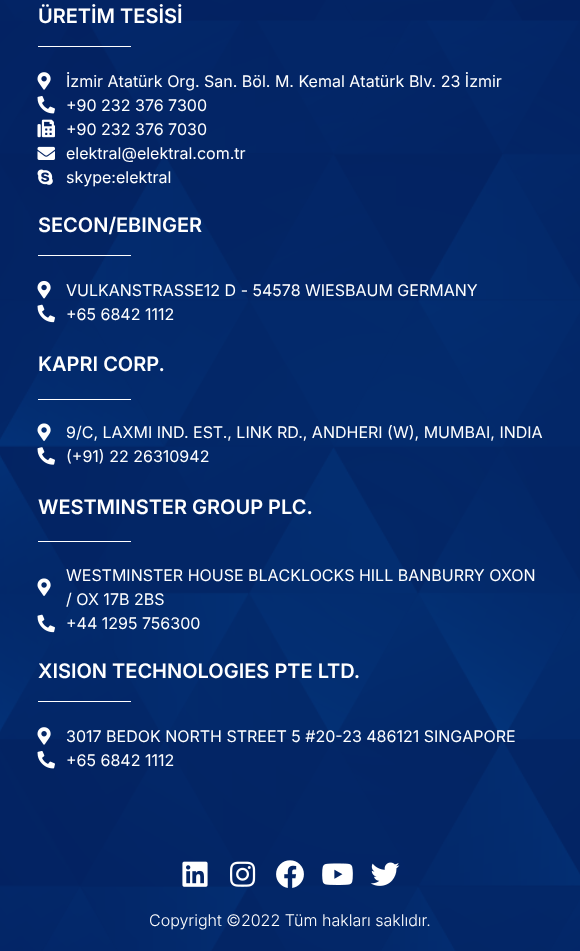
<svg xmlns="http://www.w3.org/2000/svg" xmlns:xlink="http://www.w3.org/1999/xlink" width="580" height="951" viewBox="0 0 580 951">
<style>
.cls-1{font:600 20px Inter;fill:#ffffff}
.cls-2{font:16px Inter;fill:#ffffff}
.cls-3{font:300 16px Inter;fill:#ffffff}
</style>
<rect width="100%" height="100%" fill="#051b69"/>
<image xlink:href="image0.png" x="0" y="0" width="580" height="951"/>
<rect fill="#ffffff" x="38" y="46" width="93" height="1"/>
<image xlink:href="image1.png" x="37" y="72" width="14" height="18"/>
<image xlink:href="image2.png" x="37" y="96" width="18" height="18"/>
<image xlink:href="image3.png" x="37" y="119" width="18" height="19"/>
<image xlink:href="image4.png" x="37" y="146" width="18" height="14"/>
<image xlink:href="image5.png" x="37" y="169" width="16" height="16"/>
<rect fill="#ffffff" x="38" y="255" width="93" height="1"/>
<image xlink:href="image6.png" x="37" y="280" width="14" height="19"/>
<image xlink:href="image7.png" x="37" y="304" width="18" height="19"/>
<rect fill="#ffffff" x="38" y="399" width="93" height="1"/>
<image xlink:href="image8.png" x="37" y="423" width="14" height="18"/>
<image xlink:href="image9.png" x="37" y="447" width="18" height="18"/>
<rect fill="#ffffff" x="38" y="541" width="93" height="1"/>
<image xlink:href="image10.png" x="37" y="578" width="14" height="18"/>
<image xlink:href="image11.png" x="37" y="614" width="18" height="19"/>
<rect fill="#ffffff" x="38" y="701" width="93" height="1"/>
<image xlink:href="image12.png" x="37" y="727" width="14" height="18"/>
<image xlink:href="image13.png" x="37" y="751" width="18" height="18"/>
<image xlink:href="image14.png" x="182" y="861" width="26" height="26"/>
<image xlink:href="image15.png" x="230" y="861" width="26" height="26"/>
<image xlink:href="image16.png" x="276" y="860" width="28" height="28"/>
<image xlink:href="image17.png" x="322" y="863" width="31" height="22"/>
<image xlink:href="image18.png" x="370" y="862" width="30" height="24"/>
<text class="cls-1" x="38" y="23">ÜRETİM TESİSİ</text>
<text class="cls-2"><tspan x="66" y="87">İzmir Atatürk Org. San. Böl. M. Kemal Atatürk Blv. 23 İzmir</tspan><tspan x="66" y="111">+90 232 376 7300</tspan><tspan x="66" y="135">+90 232 376 7030</tspan><tspan x="66" y="159">elektral@elektral.com.tr</tspan><tspan x="66" y="183">skype:elektral</tspan></text>
<text class="cls-1" x="38" y="232">SECON/EBINGER</text>
<text class="cls-2"><tspan x="66" y="296">VULKANSTRASSE12 D - 54578 WIESBAUM GERMANY</tspan><tspan x="66" y="320">+65 6842 1112</tspan></text>
<text class="cls-1" x="38" y="371">KAPRI CORP.</text>
<text class="cls-2"><tspan x="66" y="438">9/C, LAXMI IND. EST., LINK RD., ANDHERI (W), MUMBAI, INDIA</tspan><tspan x="66" y="462">(+91) 22 26310942</tspan></text>
<text class="cls-1" x="38" y="514">WESTMINSTER GROUP PLC.</text>
<text class="cls-2"><tspan x="66" y="581">WESTMINSTER HOUSE BLACKLOCKS HILL BANBURRY OXON</tspan><tspan x="66" y="605">/ OX 17B 2BS</tspan><tspan x="66" y="629">+44 1295 756300</tspan></text>
<text class="cls-1" x="38" y="678">XISION TECHNOLOGIES PTE LTD.</text>
<text class="cls-2"><tspan x="66" y="742">3017 BEDOK NORTH STREET 5 #20-23 486121 SINGAPORE</tspan><tspan x="66" y="766">+65 6842 1112</tspan></text>
<text class="cls-3" x="149" y="926">Copyright ©2022 Tüm hakları saklıdır.</text>
</svg>
